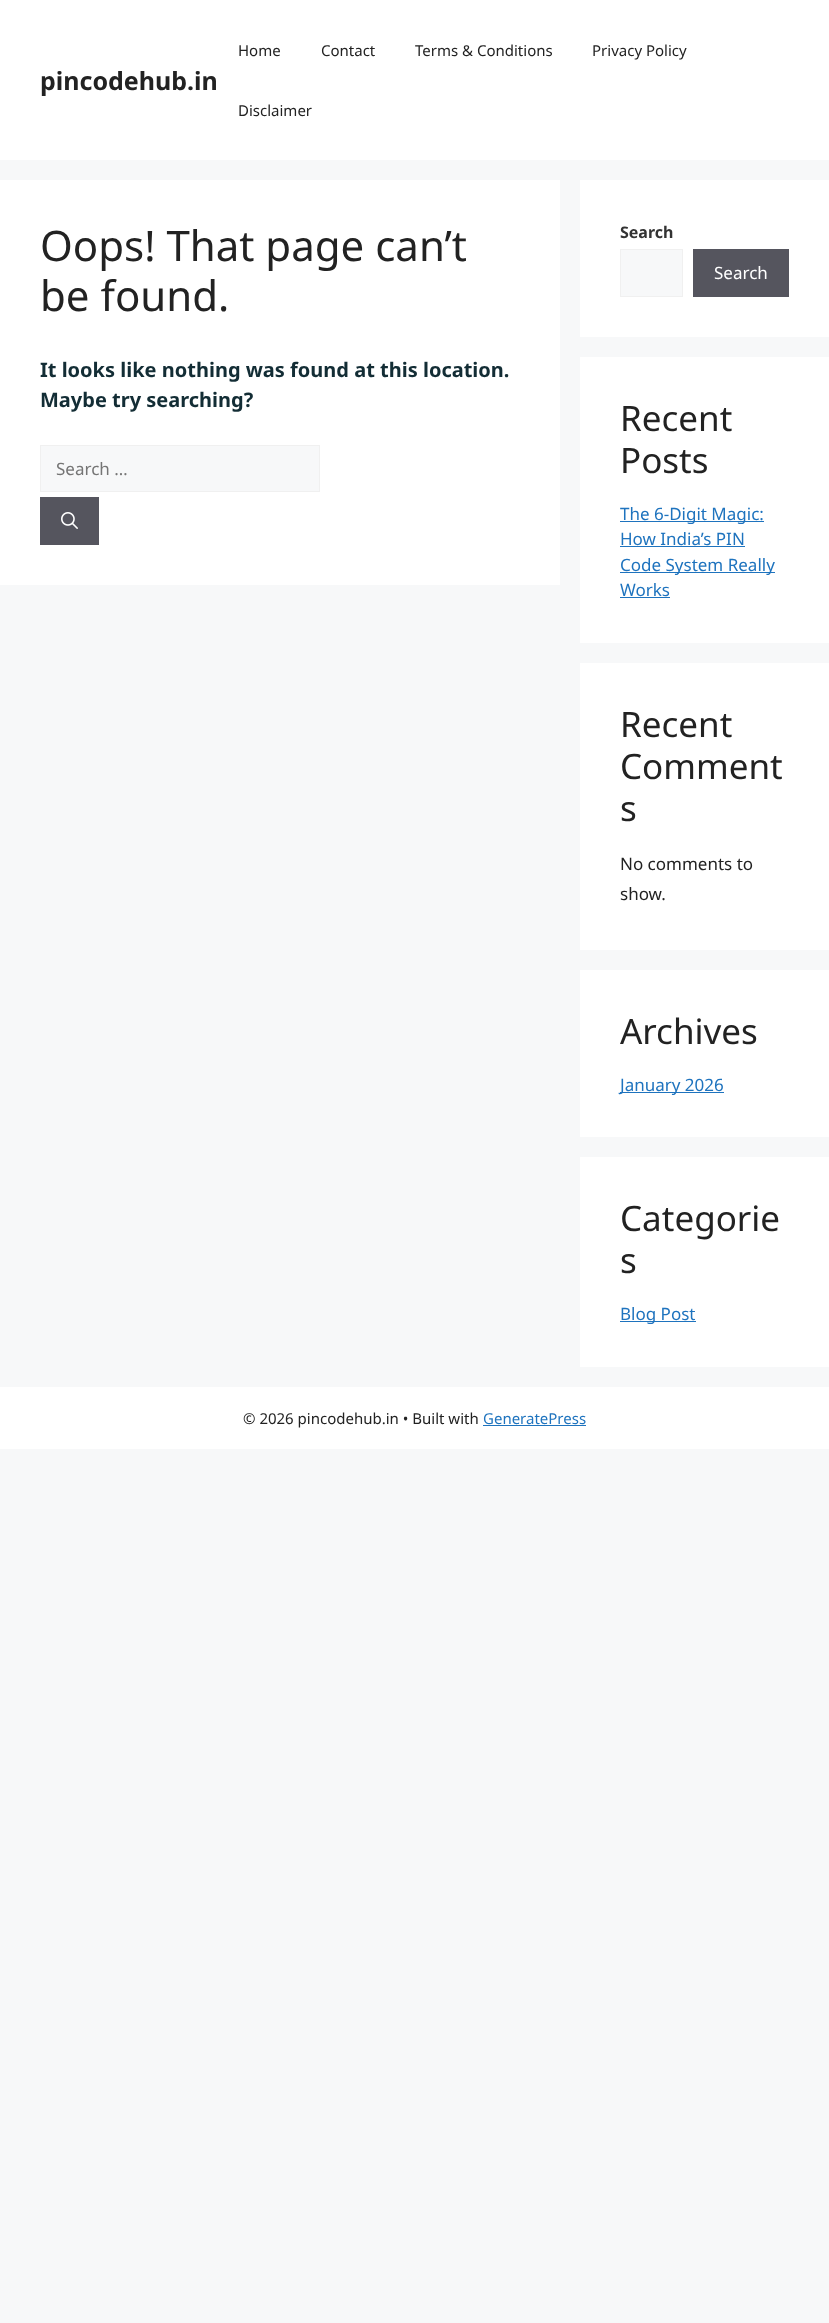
<svg xmlns="http://www.w3.org/2000/svg" xmlns:xlink="http://www.w3.org/1999/xlink" width="829" height="2323" viewBox="0 0 829 2323">
<style>
.cls-1{font:bold 25px Noto Sans;fill:#222222}
.cls-2{font:15px Noto Sans;fill:#222222}
.cls-3{font:42px Noto Sans;fill:#222222}
.cls-4{font:bold 20px Noto Sans;fill:#132d35}
.cls-5{font:17px Noto Sans;fill:#757575}
.cls-6{font:bold 16px Noto Sans;fill:#333333}
.cls-7{font:17px Noto Sans;fill:#ffffff}
.cls-8{font:35px Noto Sans;fill:#222222}
.cls-9{font:17px Noto Sans;fill:#1e73be}
.cls-10{font:17px Noto Sans;fill:#222222}
.cls-11{font:15px Noto Sans;fill:#1e73be}
</style>
<rect width="100%" height="100%" fill="#f7f8f9"/>
<rect fill="#ffffff" x="0" y="0" width="829" height="160"/>
<rect fill="#ffffff" x="0" y="180" width="560" height="405"/>
<rect fill="#f7f8f9" stroke="#f0f0f0" x="40.5" y="445.5" width="279" height="46"/>
<rect fill="#55555e" x="40" y="497" width="59" height="48"/>
<image xlink:href="image0.png" x="61" y="512" width="17" height="17"/>
<rect fill="#ffffff" x="580" y="180" width="249" height="157"/>
<rect fill="#f7f8f9" stroke="#f0f0f0" x="620.5" y="249.5" width="62" height="47"/>
<rect fill="#55555e" x="693" y="249" width="96" height="48"/>
<rect fill="#ffffff" x="580" y="357" width="249" height="286"/>
<rect fill="#1e73be" x="620" y="521" width="144" height="1"/>
<rect fill="#1e73be" x="620" y="546" width="125" height="1"/>
<rect fill="#1e73be" x="620" y="572" width="155" height="1"/>
<rect fill="#1e73be" x="620" y="597" width="50" height="1"/>
<rect fill="#ffffff" x="580" y="663" width="249" height="287"/>
<rect fill="#ffffff" x="580" y="970" width="249" height="167"/>
<rect fill="#1e73be" x="620" y="1092" width="104" height="1"/>
<rect fill="#ffffff" x="580" y="1157" width="249" height="210"/>
<rect fill="#1e73be" x="620" y="1321" width="76" height="1"/>
<rect fill="#ffffff" x="0" y="1387" width="829" height="62"/>
<rect fill="#1e73be" x="483" y="1425" width="103" height="1"/>
<text class="cls-1" x="40" y="90">pincodehub.in</text>
<text class="cls-2" x="238" y="56">Home</text>
<text class="cls-2" x="321" y="56">Contact</text>
<text class="cls-2" x="415" y="56">Terms &amp; Conditions</text>
<text class="cls-2" x="592" y="56">Privacy Policy</text>
<text class="cls-2" x="238" y="116">Disclaimer</text>
<text class="cls-3"><tspan x="40" y="261">Oops! That page can’t</tspan><tspan x="40" y="311">be found.</tspan></text>
<text class="cls-4"><tspan x="40" y="377">It looks like nothing was found at this location.</tspan><tspan x="40" y="407">Maybe try searching?</tspan></text>
<text class="cls-5" x="56" y="475">Search …</text>
<text class="cls-6" x="620" y="238">Search</text>
<text class="cls-7" x="714" y="279">Search</text>
<text class="cls-8"><tspan x="620" y="431">Recent</tspan><tspan x="620" y="473">Posts</tspan></text>
<text class="cls-9"><tspan x="620" y="520">The 6-Digit Magic:</tspan><tspan x="620" y="545">How India’s PIN</tspan><tspan x="620" y="571">Code System Really</tspan><tspan x="620" y="596">Works</tspan></text>
<text class="cls-8"><tspan x="620" y="737">Recent</tspan><tspan x="620" y="779">Comment</tspan><tspan x="620" y="821">s</tspan></text>
<text class="cls-10"><tspan x="620" y="870">No comments to</tspan><tspan x="620" y="900">show.</tspan></text>
<text class="cls-8" x="620" y="1044">Archives</text>
<text class="cls-9" x="620" y="1091">January 2026</text>
<text class="cls-8"><tspan x="620" y="1231">Categorie</tspan><tspan x="620" y="1273">s</tspan></text>
<text class="cls-9" x="620" y="1320">Blog Post</text>
<text class="cls-2" x="243" y="1424">© 2026 pincodehub.in • Built with</text>
<text class="cls-11" x="483" y="1424">GeneratePress</text>
</svg>
